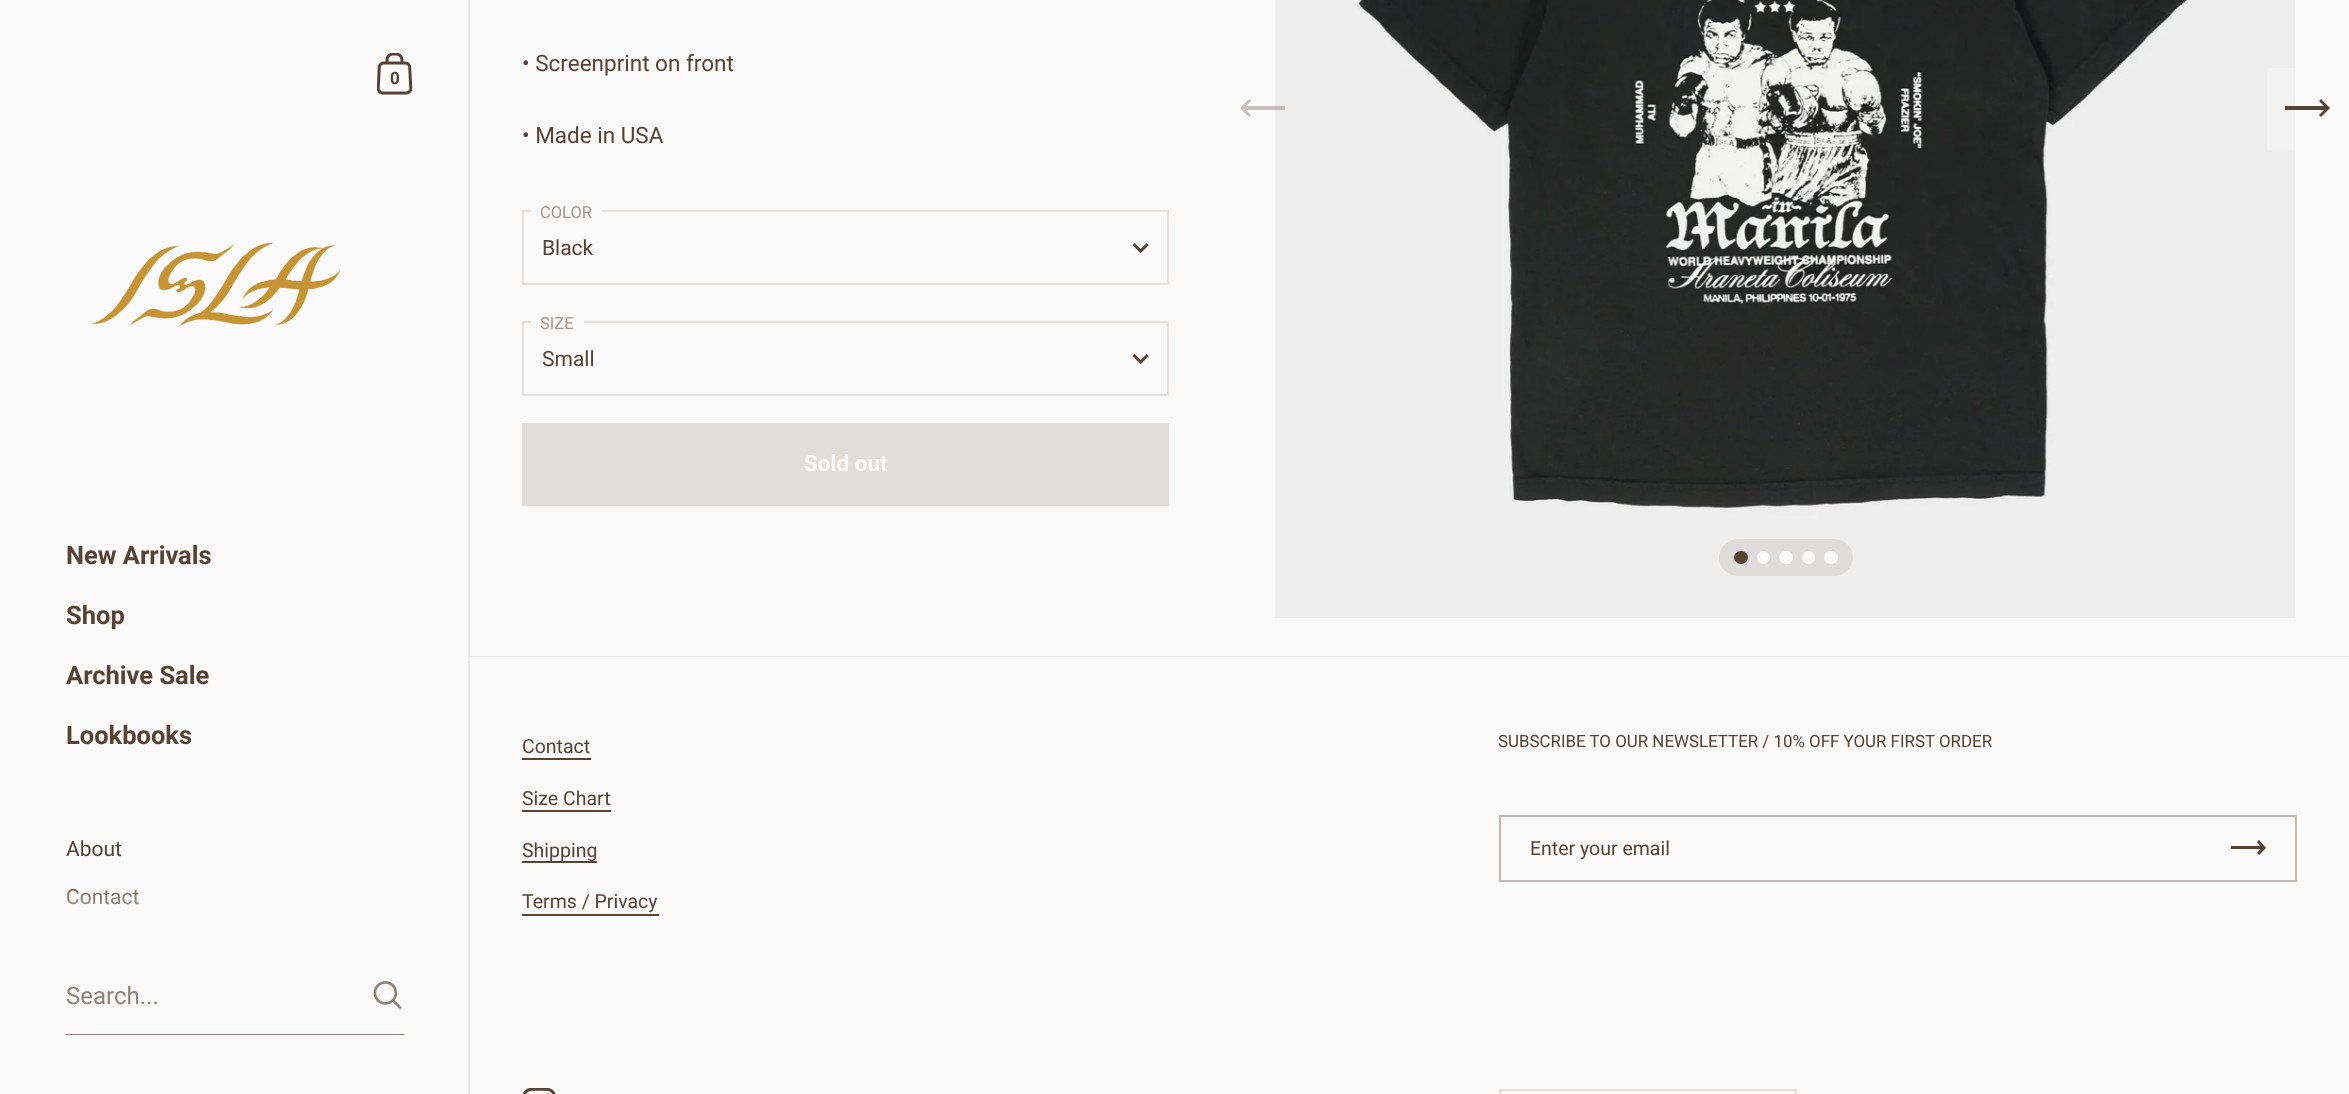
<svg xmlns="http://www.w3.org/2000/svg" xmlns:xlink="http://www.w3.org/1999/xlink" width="2349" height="1094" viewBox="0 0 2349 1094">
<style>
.cls-1{font:bold 17px Roboto;fill:#584234}
.cls-2{font:bold 25.5px Roboto;fill:#584234}
.cls-3{font:21px Roboto;fill:#584234}
.cls-4{font:24px Roboto;fill:#8f8177}
.cls-5{font:22.5px Roboto;fill:#584234}
.cls-6{font:16.5px Roboto;fill:#a3978f}
.cls-7{font:bold 22.5px Roboto;fill:#fbfbfb}
.cls-8{font:19.5px Roboto;fill:#584234}
.cls-9{font:16.9px Roboto;fill:#584234}
</style>
<defs>
<clipPath id="clip1"><rect x="2231" y="840" width="36" height="17"/></clipPath>
<linearGradient id="g1" gradientUnits="userSpaceOnUse" x1="235" y1="960" x2="235" y2="870"><stop offset="0" stop-color="#fafafa"/><stop offset="1" stop-color="#fafafa" stop-opacity="0"/></linearGradient>
</defs>
<rect width="100%" height="100%" fill="#fafafa"/>
<rect fill="#edebea" x="468" y="0" width="2" height="1094"/>
<image xlink:href="image0.png" x="377" y="53" width="36" height="42"/>
<image xlink:href="image1.png" x="91" y="242" width="250" height="85"/>
<rect fill="#8f8177" x="66" y="1034" width="338" height="1"/>
<image xlink:href="image2.png" x="373" y="981" width="29" height="29"/>
<rect fill="#edebea" x="470" y="656" width="1879" height="1"/>
<image xlink:href="image3.png" x="1132" y="243" width="17" height="11"/>
<rect fill="none" stroke="#e3e0de" stroke-width="2" x="523" y="211" width="645" height="73"/>
<rect fill="#fafafa" x="531" y="210" width="71" height="2"/>
<image xlink:href="image3.png" x="1132" y="354" width="17" height="11"/>
<rect fill="none" stroke="#e3e0de" stroke-width="2" x="523" y="322" width="645" height="73"/>
<rect fill="#fafafa" x="531" y="321" width="53" height="2"/>
<rect fill="#e0ddda" x="522" y="423" width="647" height="83"/>
<image xlink:href="image4.png" x="1275" y="0" width="1020" height="618"/>
<path fill="#584234" fill-opacity="0.3" d="M1249 117L1251 115L1246 110H1285V106H1246L1251 101L1249 99L1240 108Z"/>
<rect fill="#fafafa" fill-opacity="0.36" x="2267" y="68" width="28" height="82"/>
<path fill="#584234" d="M2321 99L2319 101L2324 106H2285V110H2324L2319 115L2321 117L2330 108Z"/>
<rect fill="#dfdddb" x="1719" y="539" width="134" height="37" rx="18.5"/>
<rect fill="#584234" x="1734" y="551" width="14" height="13" rx="6.5"/>
<circle fill="#fafafa" cx="1763.5" cy="557.5" r="6.5"/>
<rect fill="#fafafa" x="1779" y="551" width="14" height="13" rx="6.5"/>
<circle fill="#fafafa" cx="1808.5" cy="557.5" r="6.5"/>
<rect fill="#fafafa" x="1824" y="551" width="14" height="13" rx="6.5"/>
<rect fill="#584234" x="522" y="758" width="69" height="2"/>
<rect fill="#584234" x="522" y="810" width="89" height="2"/>
<rect fill="#584234" x="522" y="861" width="75" height="2"/>
<rect fill="#584234" x="522" y="914" width="137" height="2"/>
<rect fill="none" stroke="#c0b8b3" stroke-width="2" x="1500" y="816" width="796" height="65"/>
<g clip-path="url(#clip1)">
<path fill="#584234" fill-rule="evenodd" d="M2260 849L2257 853L2259 855L2266 848L2259 840L2257 842L2260 846H2216V849Z"/>
</g>
<image xlink:href="image5.png" x="522" y="1088" width="34" height="6"/>
<rect fill="none" stroke="#e0ddda" stroke-width="2" x="1500" y="1090" width="296" height="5"/>
<text class="cls-1" x="390" y="84">0</text>
<text class="cls-2" x="66" y="564">New Arrivals</text>
<text class="cls-2" x="66" y="624">Shop</text>
<text class="cls-2" x="66" y="684">Archive Sale</text>
<text class="cls-2" x="66" y="744">Lookbooks</text>
<text class="cls-3" x="66" y="856">About</text>
<text class="cls-3" x="66" y="904">Contact</text>
<rect fill="url(#g1)" x="66" y="888" width="73" height="17"/>
<text class="cls-4" x="66" y="1004">Search...</text>
<text class="cls-5" x="522" y="71">• Screenprint on front</text>
<text class="cls-5" x="522" y="143">• Made in USA</text>
<text class="cls-6" x="540" y="218">COLOR</text>
<text class="cls-3" x="542" y="255">Black</text>
<text class="cls-6" x="540" y="329">SIZE</text>
<text class="cls-3" x="542" y="366">Small</text>
<text class="cls-7" x="804" y="471">Sold out</text>
<text class="cls-8" x="522" y="753">Contact</text>
<text class="cls-8" x="522" y="805">Size Chart</text>
<text class="cls-8" x="522" y="857">Shipping</text>
<text class="cls-8" x="522" y="908">Terms / Privacy</text>
<text class="cls-9" x="1498" y="747">SUBSCRIBE TO OUR NEWSLETTER / 10% OFF YOUR FIRST ORDER</text>
<text class="cls-8" x="1530" y="855">Enter your email</text>
</svg>
